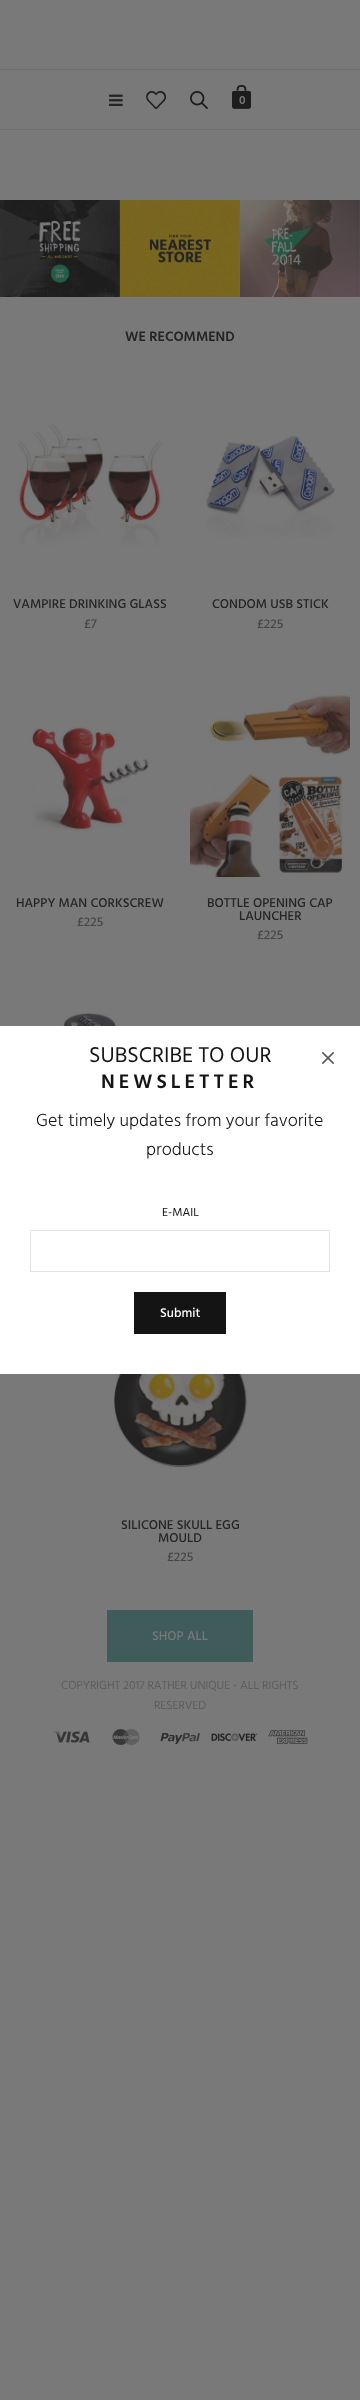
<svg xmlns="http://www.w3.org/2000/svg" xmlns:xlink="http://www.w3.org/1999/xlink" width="360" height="2400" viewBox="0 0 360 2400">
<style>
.cls-1{font:600 12px Hind;fill:#797979}
.cls-2{font:600 14px Hind;fill:#242424}
.cls-3{font:500 13px Hind;fill:#242424}
.cls-4{font:500 13px Hind;fill:#464646}
.cls-5{font:500 13px Hind;fill:#797979}
.cls-6{font:300 12px Hind;fill:#575757}
.cls-7{font:22px Hind;fill:#141414}
.cls-8{font:600 20px Hind;letter-spacing:4px;fill:#141414}
.cls-9{font:300 18px Hind;fill:#141414}
.cls-10{font:12px Hind;fill:#141414}
.cls-11{font:500 13px Hind;fill:#ffffff}
</style>
<rect width="100%" height="100%" fill="#797979"/>
<rect fill="#6f6f6f" x="0" y="69" width="360" height="1"/>
<rect fill="#6f6f6f" x="0" y="129" width="360" height="1"/>
<image xlink:href="image0.png" x="109" y="94" width="14" height="12"/>
<image xlink:href="image1.png" x="146" y="91" width="20" height="18"/>
<image xlink:href="image2.png" x="190" y="91" width="18" height="18"/>
<image xlink:href="image3.png" x="232" y="85" width="19" height="24"/>
<image xlink:href="image4.png" x="0" y="200" width="120" height="97"/>
<image xlink:href="image5.png" x="120" y="200" width="120" height="97"/>
<image xlink:href="image6.png" x="240" y="200" width="120" height="97"/>
<image xlink:href="image7.png" x="17" y="423" width="146" height="122"/>
<image xlink:href="image8.png" x="206" y="435" width="129" height="103"/>
<image xlink:href="image9.png" x="31" y="727" width="118" height="104"/>
<image xlink:href="image10.png" x="190" y="695" width="160" height="182"/>
<image xlink:href="image11.png" x="32" y="1013" width="125" height="13"/>
<image xlink:href="image12.png" x="114" y="1374" width="146" height="94"/>
<rect fill="#3f5b5a" x="107" y="1610" width="146" height="52"/>
<image xlink:href="image13.png" x="53" y="1731" width="37" height="12"/>
<image xlink:href="image14.png" x="112" y="1729" width="28" height="16"/>
<image xlink:href="image15.png" x="160" y="1733" width="40" height="11"/>
<image xlink:href="image16.png" x="211" y="1733" width="46" height="9"/>
<image xlink:href="image17.png" x="268" y="1730" width="40" height="14"/>
<rect fill="#ffffff" x="0" y="1026" width="360" height="348"/>
<image xlink:href="image18.png" x="322" y="1052" width="12" height="12"/>
<rect fill="none" stroke="#e5e5e5" x="30.5" y="1230.5" width="299" height="41"/>
<rect fill="#141414" x="134" y="1292" width="92" height="42"/>
<text class="cls-1" x="239" y="104">0</text>
<text class="cls-2" x="125" y="341">WE RECOMMEND</text>
<text class="cls-3" x="13" y="608">VAMPIRE DRINKING GLASS</text>
<text class="cls-4" x="84" y="628">£7</text>
<text class="cls-3" x="212" y="608">CONDOM USB STICK</text>
<text class="cls-4" x="257" y="628">£225</text>
<text class="cls-3" x="16" y="907">HAPPY MAN CORKSCREW</text>
<text class="cls-4" x="77" y="926">£225</text>
<text class="cls-3" x="207" y="907">BOTTLE OPENING CAP</text>
<text class="cls-3" x="239" y="920">LAUNCHER</text>
<text class="cls-4" x="257" y="939">£225</text>
<text class="cls-3" x="121" y="1529">SILICONE SKULL EGG</text>
<text class="cls-3" x="158" y="1542">MOULD</text>
<text class="cls-4" x="167" y="1561">£225</text>
<text class="cls-5" x="152" y="1640">SHOP ALL</text>
<text class="cls-6" x="61" y="1689">COPYRIGHT 2017 RATHER UNIQUE - ALL RIGHTS</text>
<text class="cls-6" x="154" y="1709">RESERVED</text>
<text class="cls-7" x="89" y="1062">SUBSCRIBE TO OUR</text>
<text class="cls-8" x="101" y="1088">NEWSLETTER</text>
<text class="cls-9" x="36" y="1126">Get timely updates from your favorite</text>
<text class="cls-9" x="146" y="1155">products</text>
<text class="cls-10" x="162" y="1216">E-MAIL</text>
<text class="cls-11" x="160" y="1317">Submit</text>
</svg>
